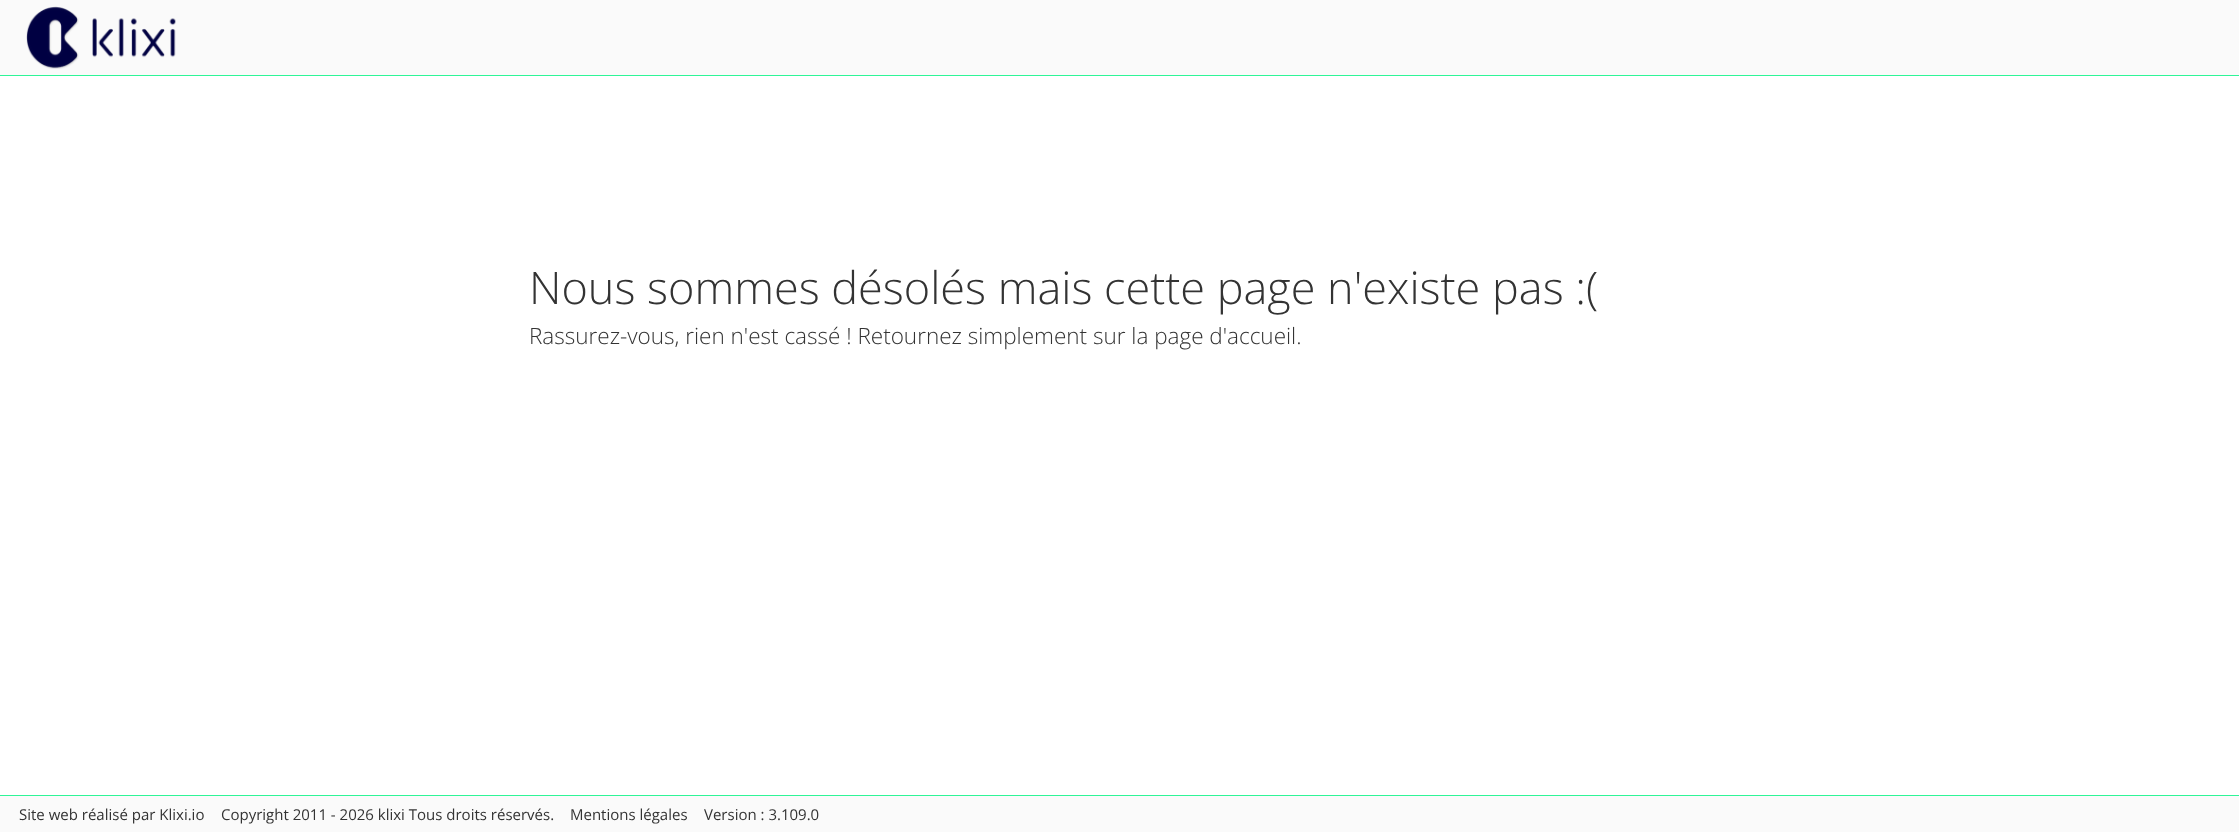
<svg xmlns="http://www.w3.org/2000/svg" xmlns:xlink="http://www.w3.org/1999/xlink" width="2239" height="832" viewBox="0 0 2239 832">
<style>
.cls-1{font:300 45px Open Sans;fill:#333333}
.cls-2{font:300 22.5px Open Sans;fill:#333333}
.cls-3{font:15px Open Sans;fill:#333333}
</style>
<rect width="100%" height="100%" fill="#ffffff"/>
<rect fill="#fafafa" x="0" y="0" width="2239" height="75"/>
<rect fill="#2ef598" x="0" y="75" width="2239" height="1"/>
<image xlink:href="image0.png" x="26" y="6" width="150" height="63"/>
<rect fill="#fafafa" x="0" y="796" width="2239" height="36"/>
<rect fill="#2ef598" x="0" y="795" width="2239" height="1"/>
<text class="cls-1" x="529" y="304">Nous sommes désolés mais cette page n'existe pas :(</text>
<text class="cls-2" x="529" y="344">Rassurez-vous, rien n'est cassé ! Retournez simplement sur la page d'accueil.</text>
<text class="cls-3" x="19" y="820">Site web réalisé par Klixi.io</text>
<text class="cls-3" x="221" y="820">Copyright 2011 - 2026 klixi Tous droits réservés.</text>
<text class="cls-3" x="570" y="820">Mentions légales</text>
<text class="cls-3" x="704" y="820">Version : 3.109.0</text>
</svg>
